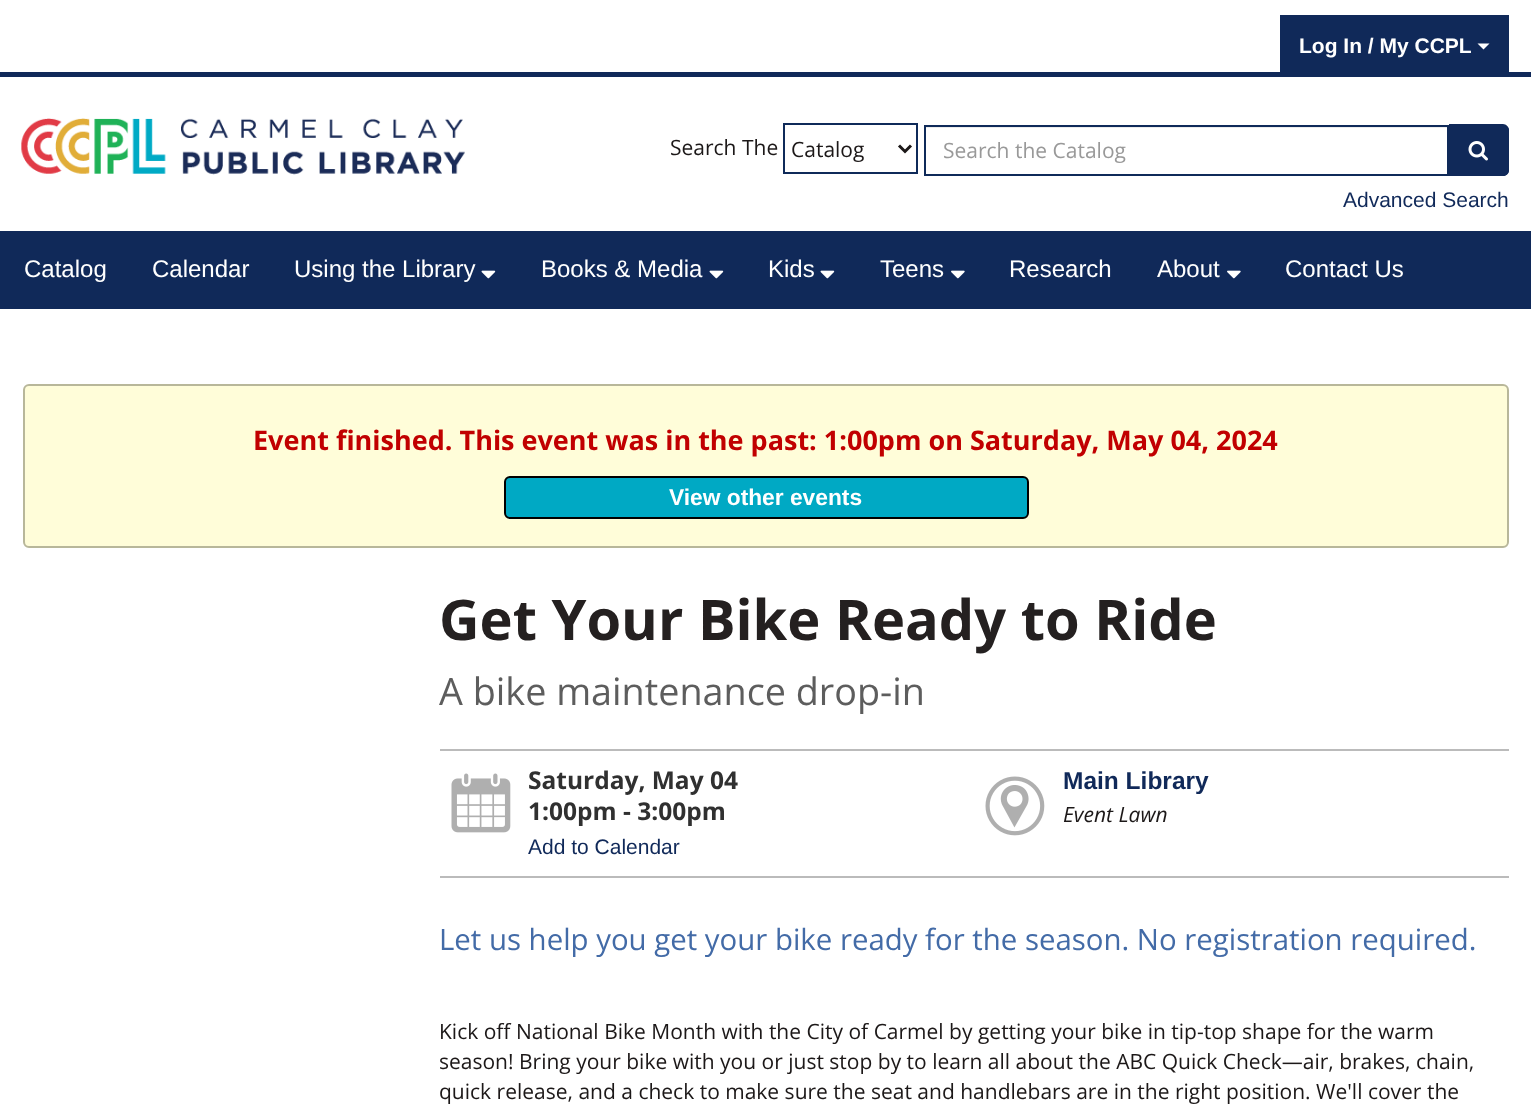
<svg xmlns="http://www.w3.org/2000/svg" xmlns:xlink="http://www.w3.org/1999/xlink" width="1531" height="1111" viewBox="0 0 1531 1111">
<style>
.cls-1{font:bold 21px Liberation Sans;fill:#ffffff}
.cls-2{font:21px Open Sans;fill:#1c1818}
.cls-3{font:21px Open Sans;fill:#999999}
.cls-4{font:21px Liberation Sans;fill:#102959}
.cls-5{font:24px Liberation Sans;fill:#ffffff}
.cls-6{font:bold 27px Open Sans;fill:#c10000}
.cls-7{font:bold 22.75px Liberation Sans;fill:#ffffff}
.cls-8{font:bold 56px Open Sans;fill:#242020}
.cls-9{font:37.75px Open Sans;fill:#5d5d5d}
.cls-10{font:bold 24.5px Open Sans;fill:#303030}
.cls-11{font:bold 24.5px Liberation Sans;fill:#102959}
.cls-12{font:italic 21px Open Sans;fill:#1c1818}
.cls-13{font:29.4px Open Sans;fill:#436ba7}
</style>
<rect width="100%" height="100%" fill="#ffffff"/>
<rect fill="#102959" x="0" y="72" width="1531" height="5"/>
<rect fill="#102959" x="1280" y="15" width="229" height="57"/>
<path fill="#ffffff" d="M1477.5 43.5H1489.5L1483.5 49.5Z"/>
<image xlink:href="image0.png" x="21" y="118" width="444" height="57"/>
<rect fill="none" stroke="#0f2a59" stroke-width="2" x="784" y="124" width="133" height="49"/>
<path fill="none" stroke="#1c1818" stroke-width="3" d="M899 145.5L905 151.5L911 145.5"/>
<rect fill="#ececec" x="926" y="127" width="522" height="1"/>
<rect fill="none" stroke="#0f2a59" stroke-width="2" x="925" y="126" width="523" height="49"/>
<path fill="#102959" d="M1449 125H1503C1506.5 125 1509 127.5 1509 131V170C1509 173.5 1506.5 176 1503 176H1449Z"/>
<path fill="#102959" fill-rule="evenodd" d="M1449 124H1503C1506 124 1509 127 1509 130V170C1509 173 1506 176 1503 176H1449ZM1449 126H1503C1505 126 1508 128 1508 130V170C1508 172 1505 174 1503 174H1449Z"/>
<image xlink:href="image1.png" x="1468" y="141" width="20" height="20"/>
<rect fill="#102959" x="0" y="231" width="1531" height="78"/>
<image xlink:href="image2.png" x="481" y="270" width="15" height="9"/>
<image xlink:href="image2.png" x="709" y="270" width="15" height="9"/>
<image xlink:href="image2.png" x="820" y="270" width="15" height="9"/>
<image xlink:href="image3.png" x="951" y="270" width="14" height="9"/>
<image xlink:href="image3.png" x="1227" y="270" width="14" height="9"/>
<rect fill="#fffdd9" stroke="#b8b79a" stroke-width="2" x="24" y="385" width="1484" height="162" rx="5"/>
<rect fill="#00a9c4" stroke="#000000" stroke-width="2" x="505" y="477" width="523" height="41" rx="5"/>
<rect fill="#bbbbbb" x="440" y="749" width="1069" height="2"/>
<image xlink:href="image4.png" x="451" y="773" width="60" height="60"/>
<image xlink:href="image5.png" x="985" y="776" width="60" height="60"/>
<rect fill="#bbbbbb" x="440" y="876" width="1069" height="2"/>
<text class="cls-1" x="1299" y="53">Log In / My CCPL</text>
<text class="cls-2" x="670" y="155">Search The</text>
<text class="cls-2" x="791" y="157">Catalog</text>
<text class="cls-3" x="943" y="158">Search the Catalog</text>
<text class="cls-4" x="1343" y="207">Advanced Search</text>
<text class="cls-5" x="24" y="277">Catalog</text>
<text class="cls-5" x="152" y="277">Calendar</text>
<text class="cls-5" x="294" y="277">Using the Library</text>
<text class="cls-5" x="541" y="277">Books &amp; Media</text>
<text class="cls-5" x="768" y="277">Kids</text>
<text class="cls-5" x="880" y="277">Teens</text>
<text class="cls-5" x="1009" y="277">Research</text>
<text class="cls-5" x="1157" y="277">About</text>
<text class="cls-5" x="1285" y="277">Contact Us</text>
<text class="cls-6" x="253" y="450">Event finished. This event was in the past: 1:00pm on Saturday, May 04, 2024</text>
<text class="cls-7" x="669" y="505">View other events</text>
<text class="cls-8" x="439" y="640">Get Your Bike Ready to Ride</text>
<text class="cls-9" x="439" y="705">A bike maintenance drop-in</text>
<text class="cls-10"><tspan x="528" y="789">Saturday, May 04</tspan><tspan x="528" y="820">1:00pm - 3:00pm</tspan></text>
<text class="cls-4" x="528" y="854">Add to Calendar</text>
<text class="cls-11" x="1063" y="789">Main Library</text>
<text class="cls-12" x="1063" y="822">Event Lawn</text>
<text class="cls-13" x="439" y="950">Let us help you get your bike ready for the season. No registration required.</text>
<text class="cls-2"><tspan x="439" y="1039">Kick off National Bike Month with the City of Carmel by getting your bike in tip-top shape for the warm</tspan><tspan x="439" y="1069">season! Bring your bike with you or just stop by to learn all about the ABC Quick Check—air, brakes, chain,</tspan><tspan x="439" y="1099">quick release, and a check to make sure the seat and handlebars are in the right position. We'll cover the</tspan></text>
</svg>
